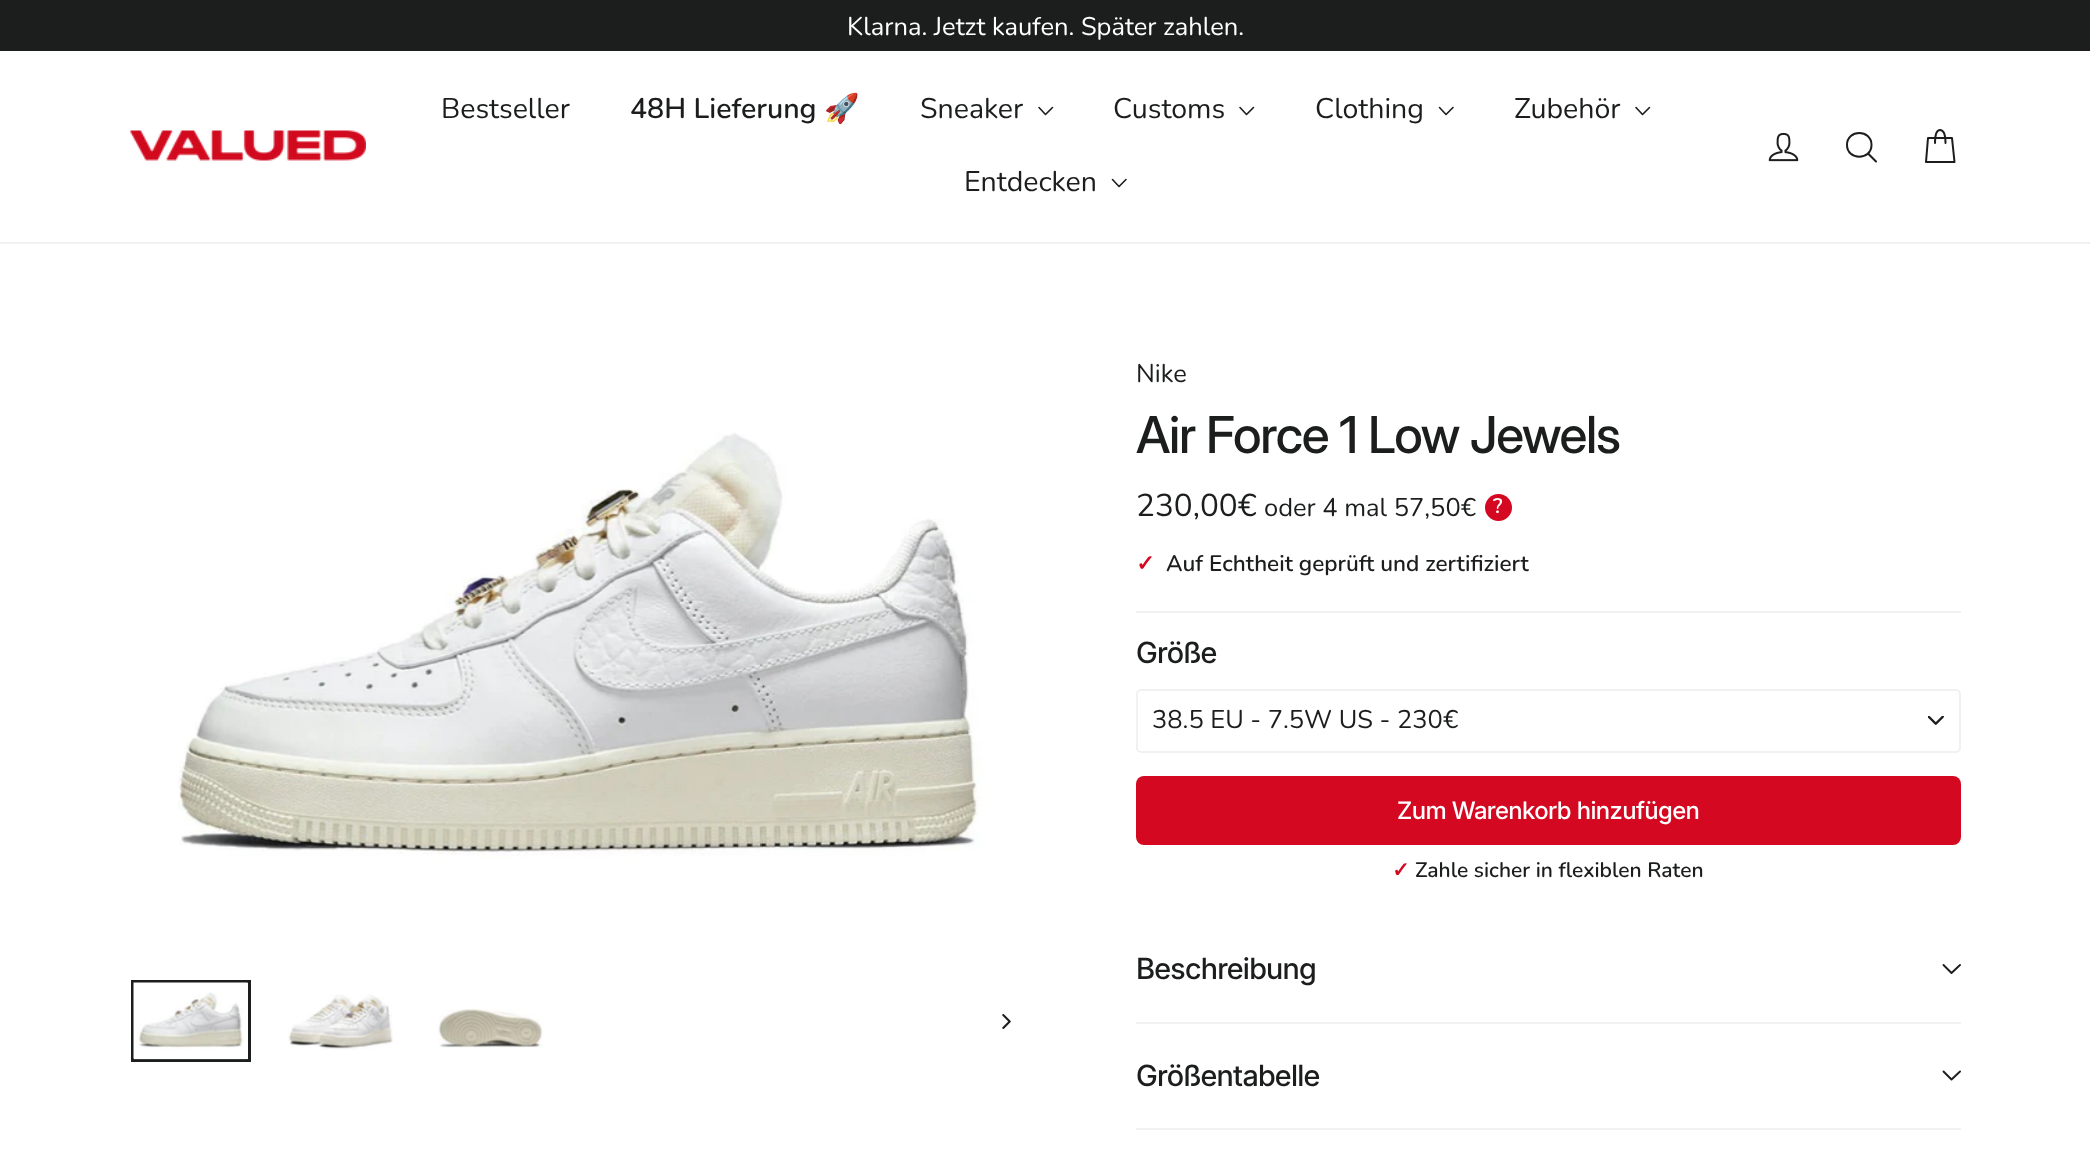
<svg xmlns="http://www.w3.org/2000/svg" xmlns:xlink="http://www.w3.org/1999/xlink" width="2090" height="1168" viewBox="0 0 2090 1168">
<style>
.cls-1{font:25.5px Nunito;fill:#ffffff}
.cls-2{font:28.5px Nunito;fill:#1c1d1d}
.cls-3{font:600 28.5px Nunito;fill:#1c1d1d}
.cls-4{font:bold 28.5px Noto Color Emoji;fill:#1c1d1d}
.cls-5{font:25.5px Nunito;fill:#1c1d1d}
.cls-6{font:500 51px Inter;letter-spacing:-1.25px;fill:#1c1d1d}
.cls-7{font:31.5px Nunito;fill:#1c1d1d}
.cls-8{font:600 21px Nunito;fill:#ffffff}
.cls-9{font:bold 22.5px DejaVu Sans;fill:#d40820}
.cls-10{font:600 22.5px Nunito;fill:#1c1d1d}
.cls-11{font:500 29.25px 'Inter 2';letter-spacing:-0.75px;fill:#1c1d1d}
.cls-12{font:500 24px 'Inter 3';letter-spacing:-0.6px;fill:#ffffff}
.cls-13{font:bold 21px DejaVu Sans;fill:#d40820}
.cls-14{font:600 21px Nunito;fill:#1c1d1d}
</style>
<rect width="100%" height="100%" fill="#ffffff"/>
<rect fill="#f0f1f3" x="0" y="242" width="2090" height="2"/>
<rect fill="#1c1d1d" x="0" y="0" width="2090" height="51"/>
<image xlink:href="image0.png" x="130" y="130" width="236" height="31"/>
<path fill="none" stroke="#1c1d1d" stroke-width="1.6" stroke-linecap="round" stroke-linejoin="round" d="M1039 107.5L1045.5 114.5L1052.5 107.5"/>
<path fill="none" stroke="#1c1d1d" stroke-width="1.6" stroke-linecap="round" stroke-linejoin="round" d="M1240 107.5L1246.5 114.5L1253.5 107.5"/>
<path fill="none" stroke="#1c1d1d" stroke-width="1.6" stroke-linecap="round" stroke-linejoin="round" d="M1439.5 107.5L1446 114.5L1453 107.5"/>
<path fill="none" stroke="#1c1d1d" stroke-width="1.6" stroke-linecap="round" stroke-linejoin="round" d="M1636 107.5L1642.5 114.5L1649.5 107.5"/>
<path fill="none" stroke="#1c1d1d" stroke-width="1.6" stroke-linecap="round" stroke-linejoin="round" d="M1112.5 179.5L1119 186.5L1126 179.5"/>
<image xlink:href="image1.png" x="1768" y="132" width="31" height="30"/>
<path fill="none" stroke="#1c1d1d" stroke-width="2" stroke-linecap="round" stroke-linejoin="round" d="M1871.5 145C1871.5 160.5 1847 160.5 1847 145C1847 129 1871.5 129 1871.5 145ZM1876 161.5L1868 153.5"/>
<path fill="none" stroke="#1c1d1d" stroke-width="2" stroke-linecap="round" stroke-linejoin="round" d="M1935 143C1935 132.5 1937 130 1940 130C1943 130 1945.5 132.5 1945.5 143M1928 138H1952L1954.5 162H1926Z"/>
<image xlink:href="image2.png" x="178" y="432" width="805" height="428"/>
<rect fill="none" stroke="#1c1d1d" stroke-width="3" x="132.5" y="981.5" width="117" height="79"/>
<image xlink:href="image3.png" x="133" y="982" width="115" height="78"/>
<image xlink:href="image4.png" x="288" y="994" width="105" height="56"/>
<image xlink:href="image5.png" x="438" y="1009" width="105" height="39"/>
<image xlink:href="image6.png" x="1002" y="1014" width="9" height="15"/>
<circle fill="#d40820" cx="1498.5" cy="507.5" r="13.5"/>
<rect fill="#f0f1f3" x="1136" y="611" width="825" height="2"/>
<image xlink:href="image7.png" x="1928" y="716" width="16" height="9"/>
<rect fill="none" stroke="#f0f1f3" stroke-width="2" x="1137" y="690" width="823" height="62" rx="4"/>
<rect fill="#d40820" x="1136" y="776" width="825" height="69" rx="8"/>
<path fill="none" stroke="#1c1d1d" stroke-width="1.9" stroke-linecap="round" stroke-linejoin="round" d="M1943.5 965L1951.5 973L1960 965"/>
<rect fill="#f0f1f3" x="1136" y="1022" width="825" height="2"/>
<path fill="none" stroke="#1c1d1d" stroke-width="1.9" stroke-linecap="round" stroke-linejoin="round" d="M1943.5 1071.5L1951.5 1079.5L1960 1071.5"/>
<rect fill="#f0f1f3" x="1136" y="1128" width="825" height="2"/>
<text class="cls-1" x="847" y="35">Klarna. Jetzt kaufen. Später zahlen.</text>
<text class="cls-2" x="441" y="118">Bestseller</text>
<text class="cls-3" x="630" y="118">48H Lieferung</text>
<text class="cls-4" x="824" y="118">🚀</text>
<text class="cls-2" x="920" y="118">Sneaker</text>
<text class="cls-2" x="1113" y="118">Customs</text>
<text class="cls-2" x="1315" y="118">Clothing</text>
<text class="cls-2" x="1514" y="118">Zubehör</text>
<text class="cls-2" x="964" y="191">Entdecken</text>
<text class="cls-5" x="1136" y="382">Nike</text>
<text class="cls-6" x="1136" y="453">Air Force 1 Low Jewels</text>
<text class="cls-7" x="1136" y="516">230,00€</text>
<text class="cls-5" x="1264" y="516">oder 4 mal 57,50€</text>
<text class="cls-8" x="1493" y="513">?</text>
<text class="cls-9" x="1136" y="571">✓</text>
<text class="cls-10" x="1166" y="571">Auf Echtheit geprüft und zertifiziert</text>
<text class="cls-11" x="1136" y="663">Größe</text>
<text class="cls-5" x="1152" y="728">38.5 EU - 7.5W US - 230€</text>
<text class="cls-12" x="1397" y="819">Zum Warenkorb hinzufügen</text>
<text class="cls-13" x="1392" y="877">✓</text>
<text class="cls-14" x="1415" y="877">Zahle sicher in flexiblen Raten</text>
<text class="cls-11" x="1136" y="979">Beschreibung</text>
<text class="cls-11" x="1136" y="1086">Größentabelle</text>
</svg>
